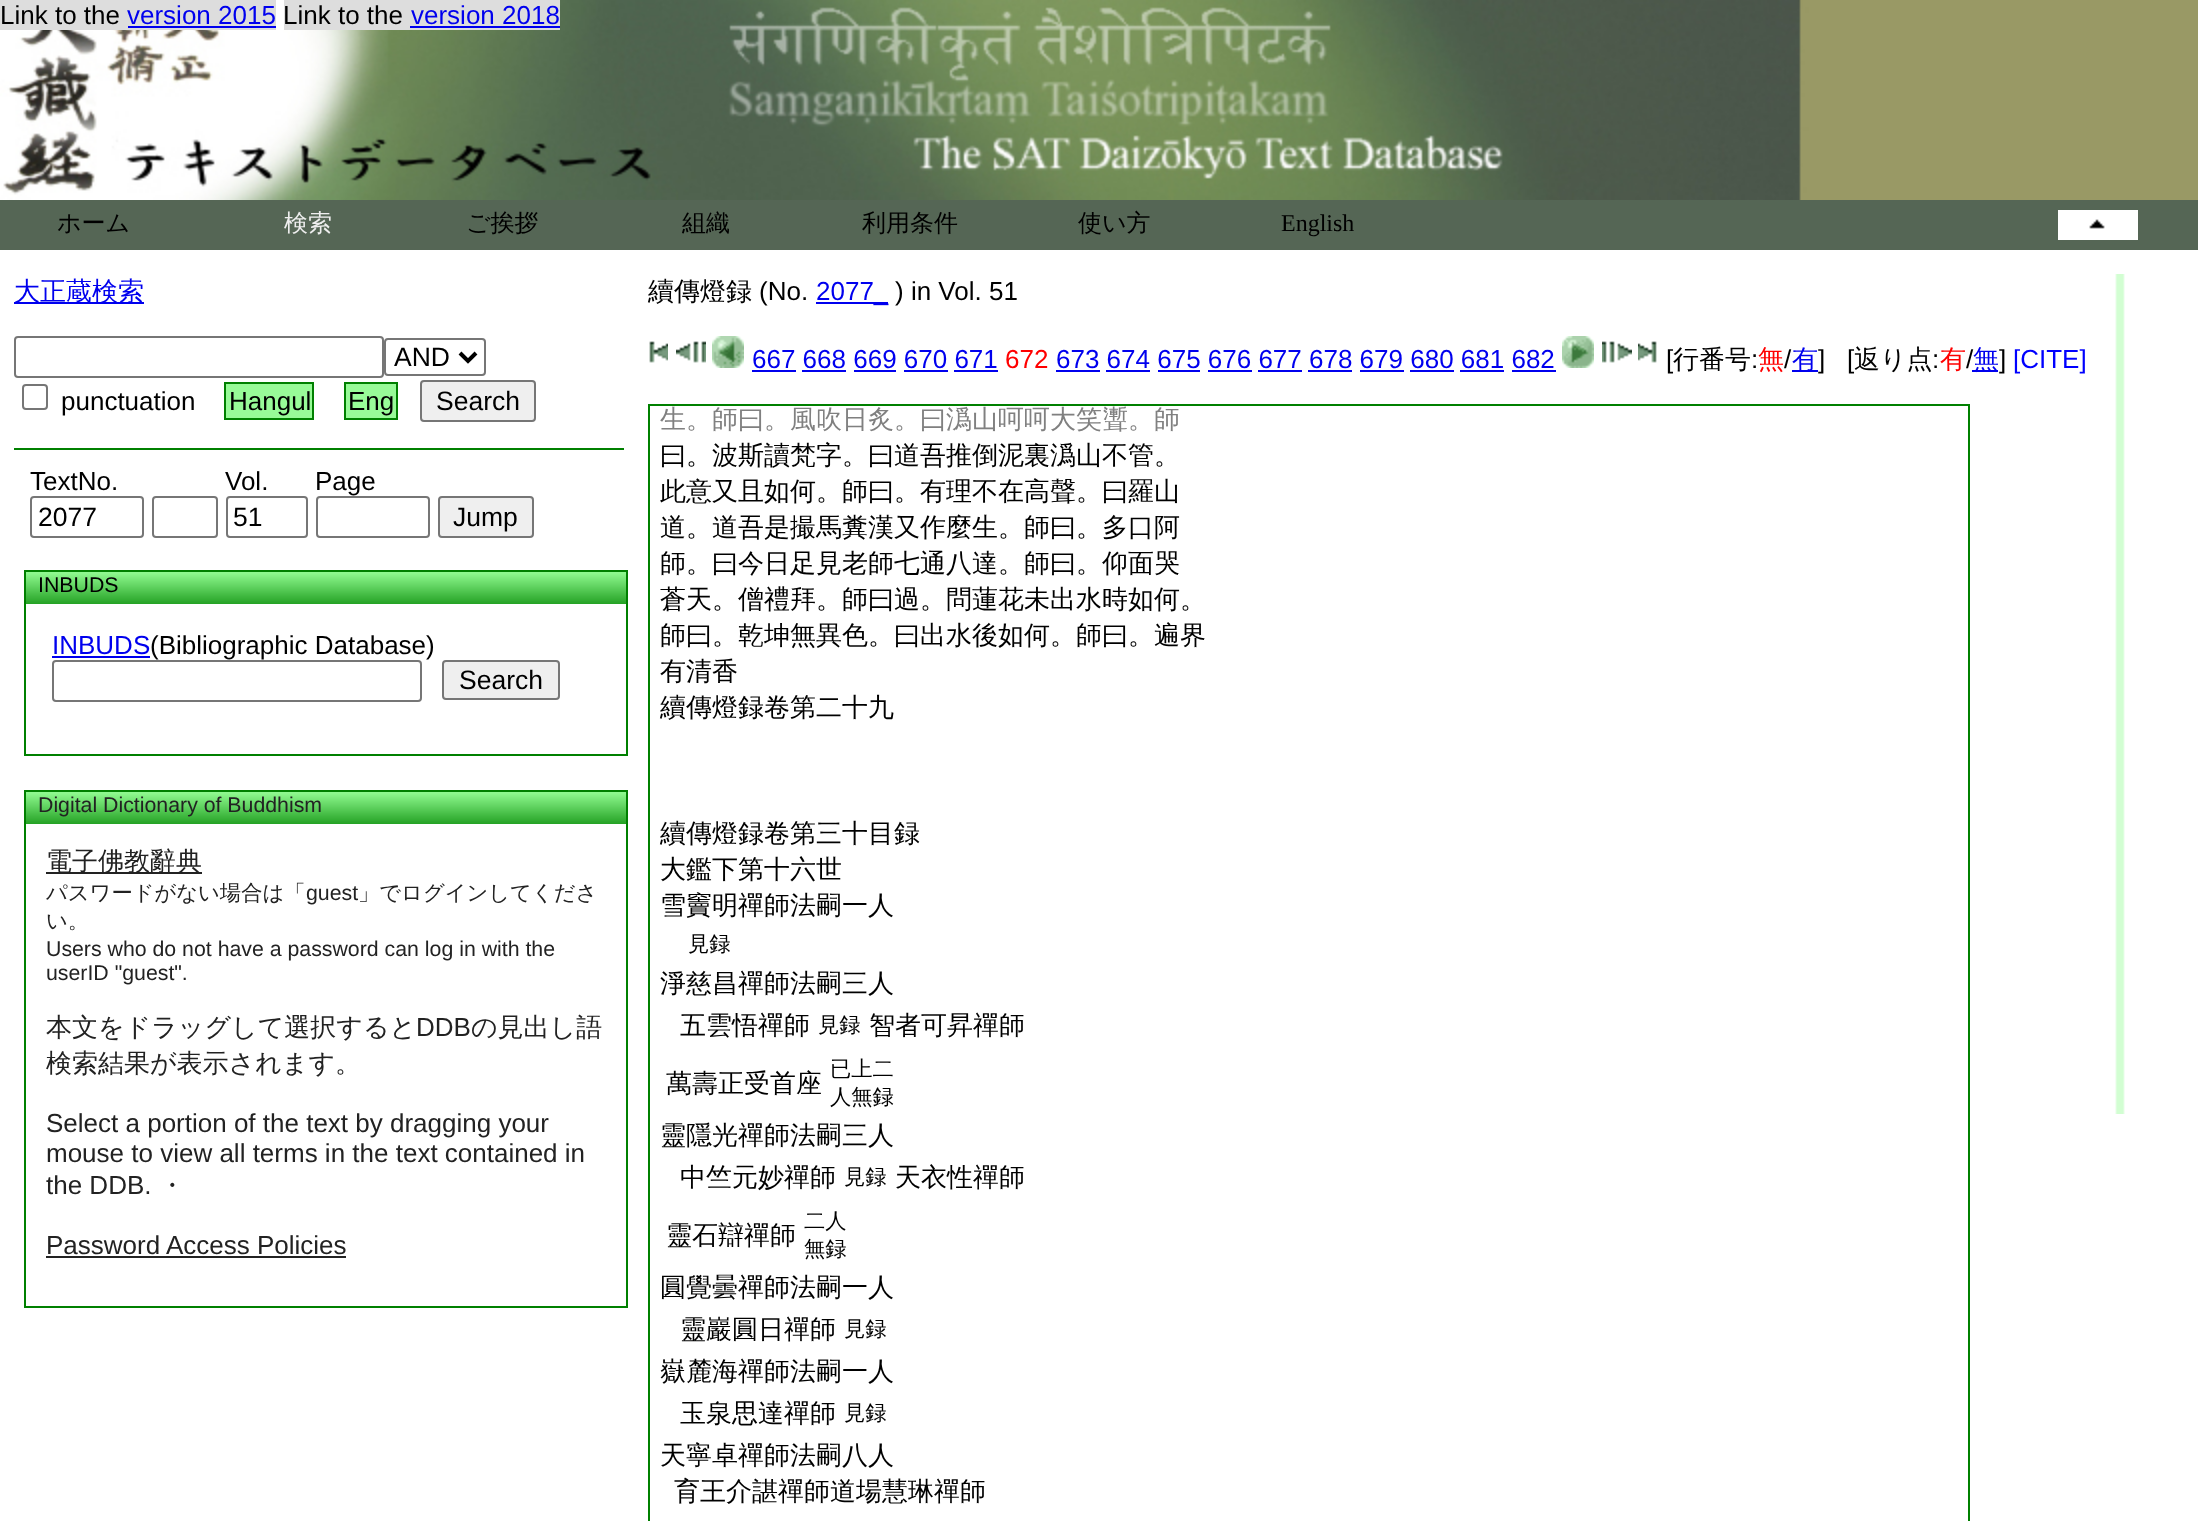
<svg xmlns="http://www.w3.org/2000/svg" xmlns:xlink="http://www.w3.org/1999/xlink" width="2198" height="1521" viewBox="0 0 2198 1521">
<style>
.cls-1{font:26px Liberation Sans;fill:#000000}
.cls-2{font:26px Liberation Sans;fill:#0000ee}
.cls-3{font:500 24px WenQuanYi Zen Hei;fill:#000000}
.cls-4{font:500 24px WenQuanYi Zen Hei;fill:#eeeeee}
.cls-5{font:24px Liberation Serif;fill:#000000}
.cls-6{font:500 26px WenQuanYi Zen Hei;fill:#0000ee}
.cls-7{font:26.5px Liberation Sans;fill:#000000}
.cls-8{font:21.3px Liberation Sans;fill:#000000}
.cls-9{font:21.3px Liberation Sans;fill:#222222}
.cls-10{font:500 26px WenQuanYi Zen Hei;fill:#222222}
.cls-11{font:500 21.3px WenQuanYi Zen Hei;fill:#222222}
.cls-12{font:26px Liberation Sans;fill:#222222}
.cls-13{font:500 26px WenQuanYi Zen Hei;fill:#000000}
.cls-14{font:26px Liberation Sans;fill:#ff0000}
.cls-15{font:500 26px WenQuanYi Zen Hei;fill:#ff0000}
.cls-16{font:26px Liberation Sans;fill:#0000ff}
.cls-17{font:500 26px WenQuanYi Zen Hei;fill:#808080}
.cls-18{font:500 21.3px WenQuanYi Zen Hei;fill:#000000}
</style>
<rect width="100%" height="100%" fill="#ffffff"/>
<image xlink:href="image0.png" x="0" y="0" width="2198" height="200"/>
<rect fill="#dddddd" x="0" y="0" width="276" height="30"/>
<rect fill="#0000ee" x="128" y="26" width="148" height="2"/>
<rect fill="#dddddd" x="284" y="0" width="276" height="30"/>
<rect fill="#0000ee" x="410" y="26" width="150" height="2"/>
<rect fill="#556655" x="0" y="200" width="2198" height="50"/>
<rect fill="#ffffff" x="2058" y="210" width="80" height="30"/>
<image xlink:href="image1.png" x="2089" y="219" width="16" height="10"/>
<rect fill="#0000ee" x="14" y="302" width="130" height="2"/>
<rect fill="none" stroke="#767676" stroke-width="2" x="15" y="337" width="368" height="40" rx="3"/>
<rect fill="none" stroke="#767676" stroke-width="2" x="385" y="339" width="100" height="36" rx="3"/>
<path fill="none" stroke="#000000" stroke-width="4" d="M460 353L468 361L476 353"/>
<rect fill="none" stroke="#767676" stroke-width="2" x="23" y="385" width="24" height="24" rx="3"/>
<rect fill="#98fb98" stroke="#008000" stroke-width="2" x="225" y="383" width="88" height="36"/>
<rect fill="#98fb98" stroke="#008000" stroke-width="2" x="345" y="383" width="52" height="36"/>
<rect fill="#efefef" stroke="#767676" stroke-width="2" x="421" y="381" width="114" height="40" rx="3"/>
<rect fill="#008000" x="14" y="448" width="610" height="2"/>
<rect fill="none" stroke="#767676" stroke-width="2" x="31" y="497" width="112" height="40" rx="3"/>
<rect fill="none" stroke="#767676" stroke-width="2" x="153" y="497" width="64" height="40" rx="3"/>
<rect fill="none" stroke="#767676" stroke-width="2" x="227" y="497" width="80" height="40" rx="3"/>
<rect fill="none" stroke="#767676" stroke-width="2" x="317" y="497" width="112" height="40" rx="3"/>
<rect fill="#efefef" stroke="#767676" stroke-width="2" x="439" y="497" width="94" height="40" rx="3"/>
<rect fill="none" stroke="#008000" stroke-width="2" x="25" y="571" width="602" height="184"/>
<image xlink:href="image2.png" x="26" y="572" width="600" height="32"/>
<rect fill="#0000ee" x="52" y="656" width="98" height="2"/>
<rect fill="none" stroke="#767676" stroke-width="2" x="53" y="661" width="368" height="40" rx="3"/>
<rect fill="#efefef" stroke="#767676" stroke-width="2" x="443" y="661" width="116" height="38" rx="3"/>
<rect fill="none" stroke="#008000" stroke-width="2" x="25" y="791" width="602" height="516"/>
<image xlink:href="image2.png" x="26" y="792" width="600" height="32"/>
<rect fill="#222222" x="46" y="872" width="156" height="2"/>
<rect fill="#222222" x="46" y="1256" width="300" height="2"/>
<rect fill="#0000ee" x="816" y="302" width="72" height="2"/>
<image xlink:href="image3.png" x="649" y="341" width="19" height="22"/>
<image xlink:href="image4.png" x="676" y="341" width="30" height="22"/>
<image xlink:href="image5.png" x="712" y="336" width="32" height="32"/>
<rect fill="#0000ee" x="752" y="370" width="44" height="2"/>
<rect fill="#0000ee" x="1056" y="370" width="44" height="2"/>
<image xlink:href="image6.png" x="1562" y="336" width="32" height="32"/>
<image xlink:href="image7.png" x="1602" y="341" width="30" height="22"/>
<image xlink:href="image8.png" x="1638" y="341" width="19" height="22"/>
<rect fill="#0000ee" x="1792" y="370" width="26" height="2"/>
<rect fill="#0000ee" x="1972" y="370" width="26" height="2"/>
<rect fill="#0000ee" x="802" y="370" width="44" height="2"/>
<rect fill="#0000ee" x="854" y="370" width="42" height="2"/>
<rect fill="#0000ee" x="904" y="370" width="44" height="2"/>
<rect fill="#0000ee" x="954" y="370" width="44" height="2"/>
<rect fill="#0000ee" x="1106" y="370" width="44" height="2"/>
<rect fill="#0000ee" x="1158" y="370" width="42" height="2"/>
<rect fill="#0000ee" x="1208" y="370" width="44" height="2"/>
<rect fill="#0000ee" x="1258" y="370" width="44" height="2"/>
<rect fill="#0000ee" x="1308" y="370" width="44" height="2"/>
<rect fill="#0000ee" x="1360" y="370" width="44" height="2"/>
<rect fill="#0000ee" x="1410" y="370" width="44" height="2"/>
<rect fill="#0000ee" x="1460" y="370" width="44" height="2"/>
<rect fill="#0000ee" x="1512" y="370" width="44" height="2"/>
<rect fill="none" stroke="#008000" stroke-width="2" x="649" y="405" width="1320" height="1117"/>
<image xlink:href="image9.png" x="2115" y="274" width="10" height="840"/>
<text class="cls-1" x="0" y="24">Link to the</text>
<text class="cls-2" x="127" y="24">version 2015</text>
<text class="cls-1" x="283" y="24">Link to the</text>
<text class="cls-2" x="411" y="24">version 2018</text>
<text class="cls-3" x="57" y="231">ホーム</text>
<text class="cls-4" x="284" y="231">検索</text>
<text class="cls-3" x="466" y="231">ご挨拶</text>
<text class="cls-3" x="682" y="231">組織</text>
<text class="cls-3" x="862" y="231">利用条件</text>
<text class="cls-3" x="1078" y="231">使い方</text>
<text class="cls-5" x="1281" y="231">English</text>
<text class="cls-6" x="14" y="300">大正蔵検索</text>
<text class="cls-7" x="394" y="366">AND</text>
<text class="cls-1" x="61" y="410">punctuation</text>
<text class="cls-1" x="229" y="410">Hangul</text>
<text class="cls-1" x="348" y="410">Eng</text>
<text class="cls-7" x="436" y="410">Search</text>
<text class="cls-1" x="30" y="490">TextNo.</text>
<text class="cls-7" x="38" y="526">2077</text>
<text class="cls-1" x="225" y="490">Vol.</text>
<text class="cls-7" x="233" y="526">51</text>
<text class="cls-1" x="315" y="490">Page</text>
<text class="cls-7" x="453" y="526">Jump</text>
<text class="cls-8" x="38" y="592">INBUDS</text>
<text class="cls-2" x="52" y="654">INBUDS</text>
<text class="cls-1" x="150" y="654">(Bibliographic Database)</text>
<text class="cls-7" x="459" y="689">Search</text>
<text class="cls-9" x="38" y="812">Digital Dictionary of Buddhism</text>
<text class="cls-10" x="46" y="870">電子佛教辭典</text>
<text class="cls-11" x="46" y="900">パスワードがない場合は「</text>
<text class="cls-9" x="306" y="900">guest</text>
<text class="cls-11" x="358" y="900">」でログインしてくださ</text>
<text class="cls-11" x="46" y="928">い。</text>
<text class="cls-9"><tspan x="46" y="956">Users who do not have a password can log in with the</tspan><tspan x="46" y="980">userID "guest".</tspan></text>
<text class="cls-10" x="46" y="1036">本文をドラッグして選択すると</text>
<text class="cls-12" x="416" y="1036">DDB</text>
<text class="cls-10" x="471" y="1036">の見出し語</text>
<text class="cls-10" x="46" y="1072">検索結果が表示されます。</text>
<text class="cls-12"><tspan x="46" y="1132">Select a portion of the text by dragging your</tspan><tspan x="46" y="1162">mouse to view all terms in the text contained in</tspan><tspan x="46" y="1194">the DDB.</tspan></text>
<text class="cls-10" x="159" y="1194">・</text>
<text class="cls-12" x="46" y="1254">Password Access Policies</text>
<text class="cls-13" x="648" y="300">續傳燈録</text>
<text class="cls-1" x="759" y="300">(No.</text>
<text class="cls-2" x="816" y="300">2077_</text>
<text class="cls-1" x="895" y="300">) in Vol. 51</text>
<text class="cls-2" x="752" y="368">667 668 669 670 671</text>
<text class="cls-14" x="1005" y="368">672</text>
<text class="cls-2" x="1056" y="368">673 674 675 676 677 678 679 680 681 682</text>
<text class="cls-1" x="1666" y="368">[</text>
<text class="cls-13" x="1673" y="368">行番号</text>
<text class="cls-1" x="1751" y="368">:</text>
<text class="cls-15" x="1758" y="368">無</text>
<text class="cls-1" x="1784" y="368">/</text>
<text class="cls-6" x="1792" y="368">有</text>
<text class="cls-1" xml:space="preserve" x="1818" y="368">]   [</text>
<text class="cls-13" x="1854" y="368">返り点</text>
<text class="cls-1" x="1932" y="368">:</text>
<text class="cls-15" x="1940" y="368">有</text>
<text class="cls-1" x="1966" y="368">/</text>
<text class="cls-6" x="1973" y="368">無</text>
<text class="cls-1" x="1999" y="368">]</text>
<text class="cls-16" x="2013" y="368">[CITE]</text>
<text class="cls-17" x="660" y="428">生。師曰。風吹日炙。曰潙山呵呵大笑聻。師</text>
<text class="cls-13"><tspan x="660" y="464">曰。波斯讀梵字。曰道吾推倒泥裏潙山不管。</tspan><tspan x="660" y="500">此意又且如何。師曰。有理不在高聲。曰羅山</tspan><tspan x="660" y="536">道。道吾是撮馬糞漢又作麼生。師曰。多口阿</tspan><tspan x="660" y="572">師。曰今日足見老師七通八達。師曰。仰面哭</tspan><tspan x="660" y="608">蒼天。僧禮拜。師曰過。問蓮花未出水時如何。</tspan><tspan x="660" y="644">師曰。乾坤無異色。曰出水後如何。師曰。遍界</tspan><tspan x="660" y="680">有清香</tspan><tspan x="660" y="716">續傳燈録卷第二十九</tspan></text>
<text class="cls-13"><tspan x="660" y="842">續傳燈録卷第三十目録</tspan><tspan x="660" y="878">大鑑下第十六世</tspan><tspan x="660" y="914">雪竇明禪師法嗣一人</tspan></text>
<text class="cls-18" x="688" y="951">見録</text>
<text class="cls-13" x="660" y="992">淨慈昌禪師法嗣三人</text>
<text class="cls-13" x="680" y="1034">五雲悟禪師</text>
<text class="cls-18" x="818" y="1032">見録</text>
<text class="cls-13" x="869" y="1034">智者可昇禪師</text>
<text class="cls-13" x="666" y="1092">萬壽正受首座</text>
<text class="cls-18"><tspan x="830" y="1076">已上二</tspan><tspan x="830" y="1104">人無録</tspan></text>
<text class="cls-13" x="660" y="1144">靈隱光禪師法嗣三人</text>
<text class="cls-13" x="680" y="1186">中竺元妙禪師</text>
<text class="cls-18" x="844" y="1184">見録</text>
<text class="cls-13" x="895" y="1186">天衣性禪師</text>
<text class="cls-13" x="666" y="1244">靈石辯禪師</text>
<text class="cls-18"><tspan x="804" y="1228">二人</tspan><tspan x="804" y="1256">無録</tspan></text>
<text class="cls-13" x="660" y="1296">圓覺曇禪師法嗣一人</text>
<text class="cls-13" x="680" y="1338">靈巖圓日禪師</text>
<text class="cls-18" x="844" y="1336">見録</text>
<text class="cls-13" x="660" y="1380">嶽麓海禪師法嗣一人</text>
<text class="cls-13" x="680" y="1422">玉泉思達禪師</text>
<text class="cls-18" x="844" y="1420">見録</text>
<text class="cls-13" x="660" y="1464">天寧卓禪師法嗣八人</text>
<text class="cls-13" x="674" y="1500">育王介諶禪師道場慧琳禪師</text>
</svg>
